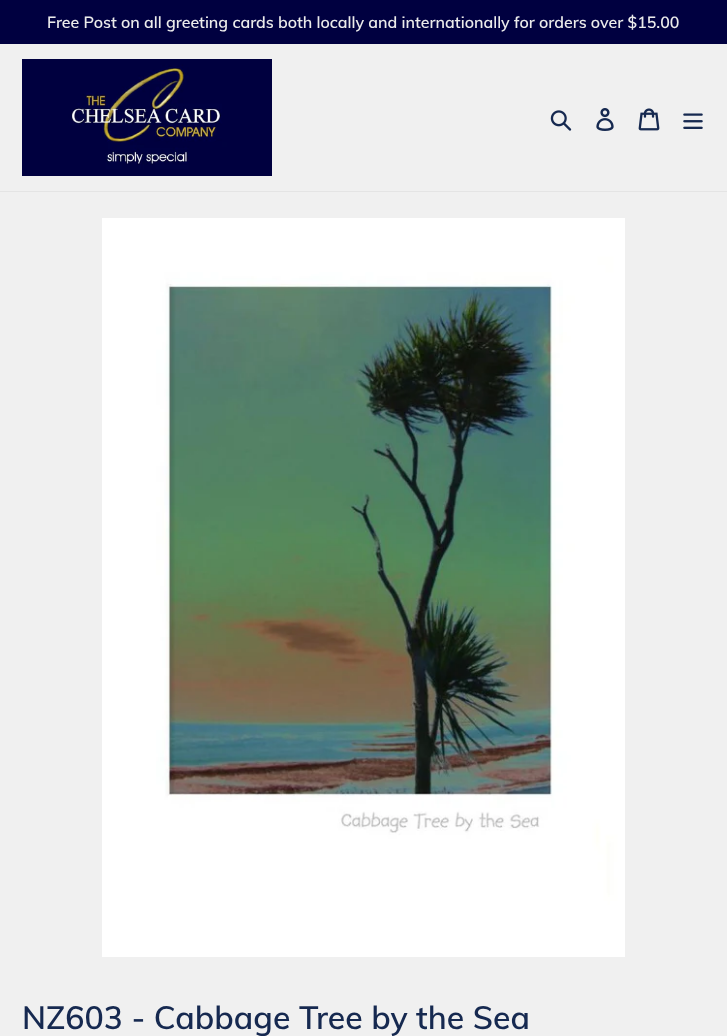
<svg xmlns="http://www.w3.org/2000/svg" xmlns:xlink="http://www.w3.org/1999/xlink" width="727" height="1036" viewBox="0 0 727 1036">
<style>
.cls-1{font:600 16px Muli;fill:#ebebeb}
.cls-2{font:600 32px Muli;fill:#162950}
</style>
<rect width="100%" height="100%" fill="#f0f0f0"/>
<rect fill="#000040" x="0" y="0" width="727" height="44"/>
<rect fill="#e4e4e4" x="0" y="191" width="727" height="1"/>
<image xlink:href="image0.png" x="22" y="59" width="250" height="117"/>
<image xlink:href="image1.png" x="550" y="110" width="22" height="21"/>
<image xlink:href="image2.png" x="596" y="108" width="18" height="23"/>
<image xlink:href="image3.png" x="638" y="108" width="22" height="23"/>
<image xlink:href="image4.png" x="683" y="113" width="20" height="16"/>
<image xlink:href="image5.png" x="102" y="218" width="523" height="739"/>
<text class="cls-1" x="47" y="28">Free Post on all greeting cards both locally and internationally for orders over $15.00</text>
<text class="cls-2" x="22" y="1029">NZ603 - Cabbage Tree by the Sea</text>
</svg>
